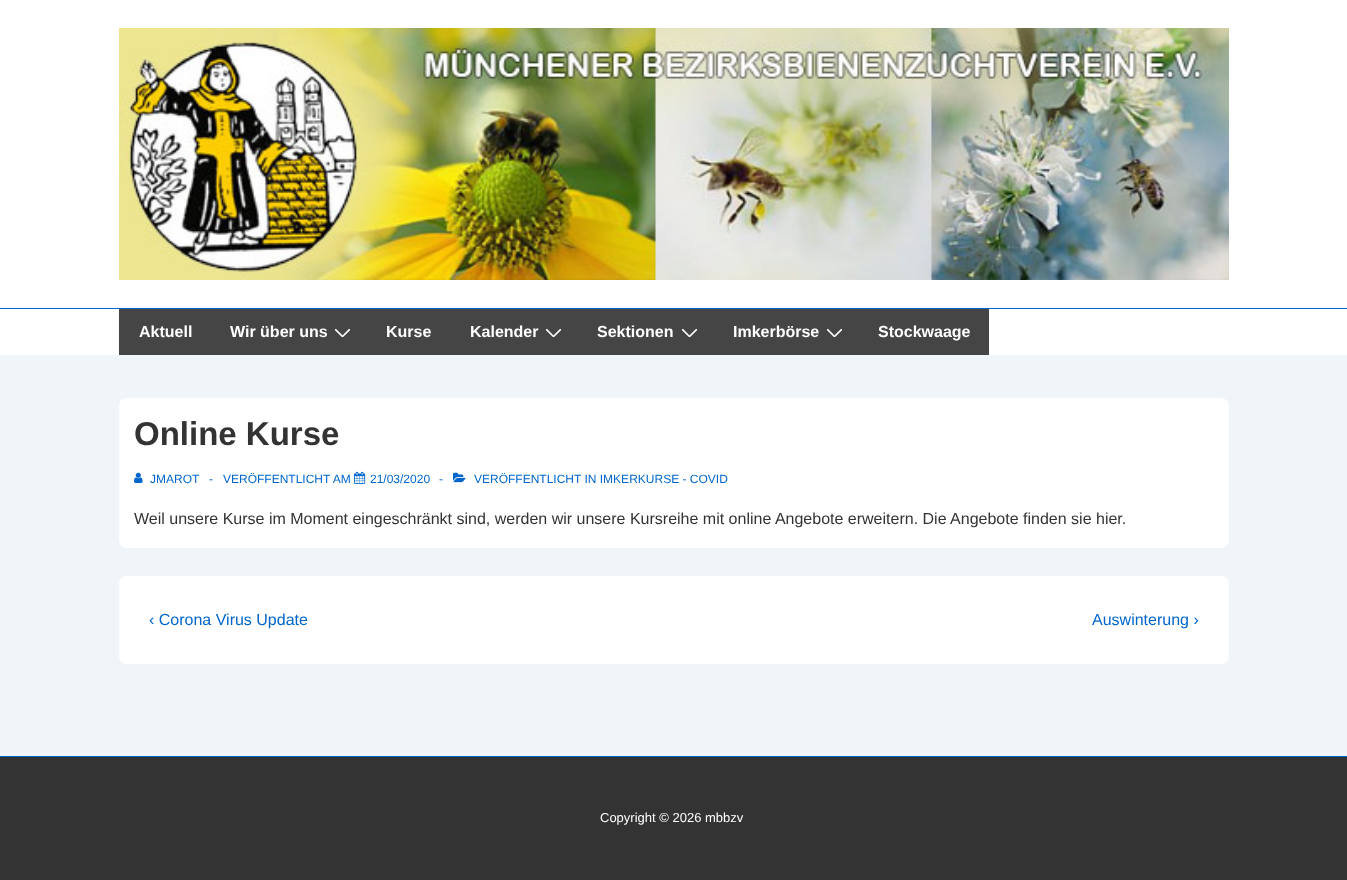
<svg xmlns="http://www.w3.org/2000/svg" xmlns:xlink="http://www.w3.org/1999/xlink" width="1347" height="880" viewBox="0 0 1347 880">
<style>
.cls-1{font:bold 16px Liberation Sans;fill:#ffffff}
.cls-2{font:bold 33px Liberation Sans;fill:#333333}
.cls-3{font:12px Liberation Sans;fill:#0066cc}
.cls-4{font:16px Liberation Sans;fill:#333333}
.cls-5{font:16px Liberation Sans;fill:#0066cc}
.cls-6{font:13px Liberation Sans;fill:#ffffff}
</style>
<defs>
<clipPath id="clip1"><rect x="335" y="329" width="15" height="8"/></clipPath>
<clipPath id="clip2"><rect x="546" y="329" width="15" height="8"/></clipPath>
<clipPath id="clip3"><rect x="682" y="329" width="15" height="8"/></clipPath>
<clipPath id="clip4"><rect x="827" y="329" width="15" height="8"/></clipPath>
</defs>
<rect width="100%" height="100%" fill="#f0f5fa"/>
<rect fill="#ffffff" x="0" y="0" width="1347" height="308"/>
<rect fill="#0066cc" x="0" y="308" width="1347" height="1"/>
<image xlink:href="image0.png" x="119" y="28" width="1110" height="252"/>
<rect fill="#ffffff" x="0" y="309" width="1347" height="46"/>
<rect fill="#454545" x="119" y="309" width="870" height="46"/>
<g clip-path="url(#clip1)">
<path fill="none" stroke="#ffffff" stroke-width="1.6" stroke-linecap="round" d="M335.5 329.5L342.5 336.5L349.5 329.5"/>
</g>
<g clip-path="url(#clip2)">
<path fill="none" stroke="#ffffff" stroke-width="1.6" stroke-linecap="round" d="M546.5 329.5L553.5 336.5L560.5 329.5"/>
</g>
<g clip-path="url(#clip3)">
<path fill="none" stroke="#ffffff" stroke-width="1.6" stroke-linecap="round" d="M682.5 329.5L689.5 336.5L696.5 329.5"/>
</g>
<g clip-path="url(#clip4)">
<path fill="none" stroke="#ffffff" stroke-width="1.6" stroke-linecap="round" d="M827.5 329.5L834.5 336.5L841.5 329.5"/>
</g>
<rect fill="#ffffff" x="119" y="398" width="1110" height="150" rx="8"/>
<image xlink:href="image1.png" x="134" y="472" width="9" height="11"/>
<image xlink:href="image2.png" x="354" y="471" width="12" height="13"/>
<image xlink:href="image3.png" x="453" y="472" width="13" height="11"/>
<rect fill="#ffffff" x="119" y="576" width="1110" height="88" rx="8"/>
<rect fill="#333333" x="0" y="757" width="1347" height="123"/>
<rect fill="#0066cc" x="0" y="756" width="1347" height="1"/>
<text class="cls-1" x="139" y="337">Aktuell</text>
<text class="cls-1" x="230" y="337">Wir über uns</text>
<text class="cls-1" x="386" y="337">Kurse</text>
<text class="cls-1" x="470" y="337">Kalender</text>
<text class="cls-1" x="597" y="337">Sektionen</text>
<text class="cls-1" x="733" y="337">Imkerbörse</text>
<text class="cls-1" x="878" y="337">Stockwaage</text>
<text class="cls-2" x="134" y="445">Online Kurse</text>
<text class="cls-3" x="150" y="483">JMAROT</text>
<text class="cls-3" x="209" y="483">-</text>
<text class="cls-3" x="223" y="483">VERÖFFENTLICHT AM</text>
<text class="cls-3" x="370" y="483">21/03/2020</text>
<text class="cls-3" x="439" y="483">-</text>
<text class="cls-3" x="474" y="483">VERÖFFENTLICHT IN IMKERKURSE - COVID</text>
<text class="cls-4" x="134" y="524">Weil unsere Kurse im Moment eingeschränkt sind, werden wir unsere Kursreihe mit online Angebote erweitern. Die Angebote finden sie hier.</text>
<text class="cls-5" x="149" y="625">‹ Corona Virus Update</text>
<text class="cls-5" x="1092" y="625">Auswinterung ›</text>
<text class="cls-6" x="600" y="822">Copyright © 2026 mbbzv</text>
</svg>
